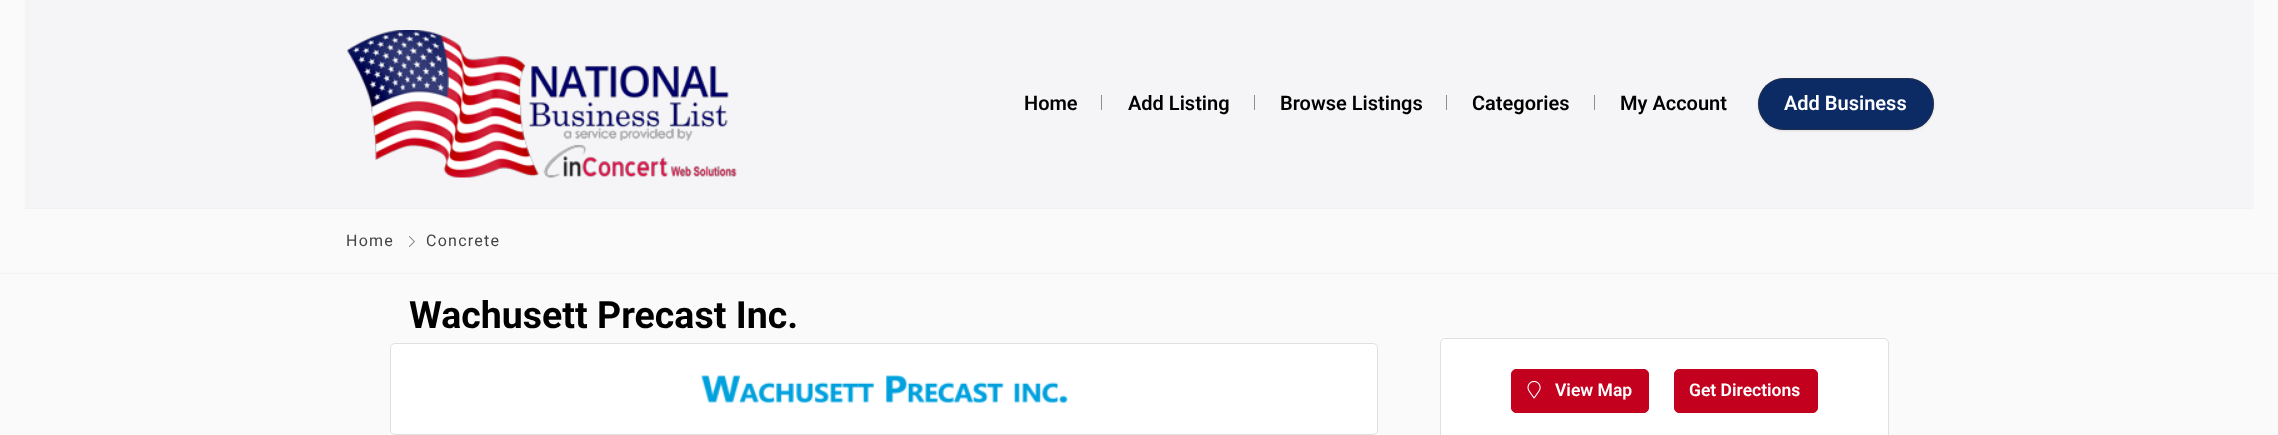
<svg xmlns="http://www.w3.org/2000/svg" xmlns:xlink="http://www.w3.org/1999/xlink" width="2278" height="435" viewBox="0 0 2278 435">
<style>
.cls-1{font:600 20px Roboto;fill:#000000}
.cls-2{font:600 20px Roboto;fill:#ffffff}
.cls-3{font:16px Roboto;letter-spacing:1.25px;fill:#444444}
.cls-4{font:bold 37.5px Roboto;fill:#000000}
.cls-5{font:600 17.5px Roboto;fill:#ffffff}
</style>
<rect width="100%" height="100%" fill="#fafafb"/>
<rect fill="#f5f5f7" x="25" y="0" width="2229" height="208"/>
<rect fill="#f2f2f2" x="25" y="208" width="2229" height="1"/>
<image xlink:href="image0.png" x="347" y="30" width="390" height="148"/>
<rect fill="#8e8e8f" x="1101" y="95" width="1" height="15"/>
<rect fill="#8e8e8f" x="1254" y="95" width="1" height="15"/>
<rect fill="#8e8e8f" x="1446" y="95" width="1" height="15"/>
<rect fill="#8e8e8f" x="1594" y="95" width="1" height="15"/>
<rect fill="#000000" fill-opacity="0.1" filter="blur(1px)" x="1758" y="79" width="176" height="52" rx="26"/>
<rect fill="#0c2b64" x="1758" y="78" width="176" height="52" rx="26"/>
<rect fill="none" stroke="#363636" stroke-opacity="0.49" x="1758.5" y="78.5" width="175" height="51" rx="25.5"/>
<rect fill="#f2f2f2" x="0" y="273" width="2278" height="1"/>
<image xlink:href="image1.png" x="409" y="236" width="6" height="11"/>
<rect fill="#ffffff" stroke="#e0e0e0" x="390.5" y="343.5" width="987" height="91" rx="4.5"/>
<image xlink:href="image2.png" x="701" y="375" width="367" height="29"/>
<rect fill="#ffffff" stroke="#e0e0e0" x="1440.5" y="338.5" width="448" height="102" rx="4.5"/>
<rect fill="#c3001e" stroke="#c3001e" x="1511.5" y="369.5" width="137" height="43" rx="4.5"/>
<image xlink:href="image3.png" x="1527" y="380" width="14" height="19"/>
<rect fill="#c3001e" stroke="#c3001e" x="1674.5" y="369.5" width="143" height="43" rx="4.5"/>
<text class="cls-1" x="1024" y="110">Home</text>
<text class="cls-1" x="1128" y="110">Add Listing</text>
<text class="cls-1" x="1280" y="110">Browse Listings</text>
<text class="cls-1" x="1472" y="110">Categories</text>
<text class="cls-1" x="1620" y="110">My Account</text>
<text class="cls-2" x="1784" y="110">Add Business</text>
<text class="cls-3" x="346" y="246">Home</text>
<text class="cls-3" x="426" y="246">Concrete</text>
<text class="cls-4" x="409" y="328">Wachusett Precast Inc.</text>
<text class="cls-5" x="1555" y="396">View Map</text>
<text class="cls-5" x="1689" y="396">Get Directions</text>
</svg>
